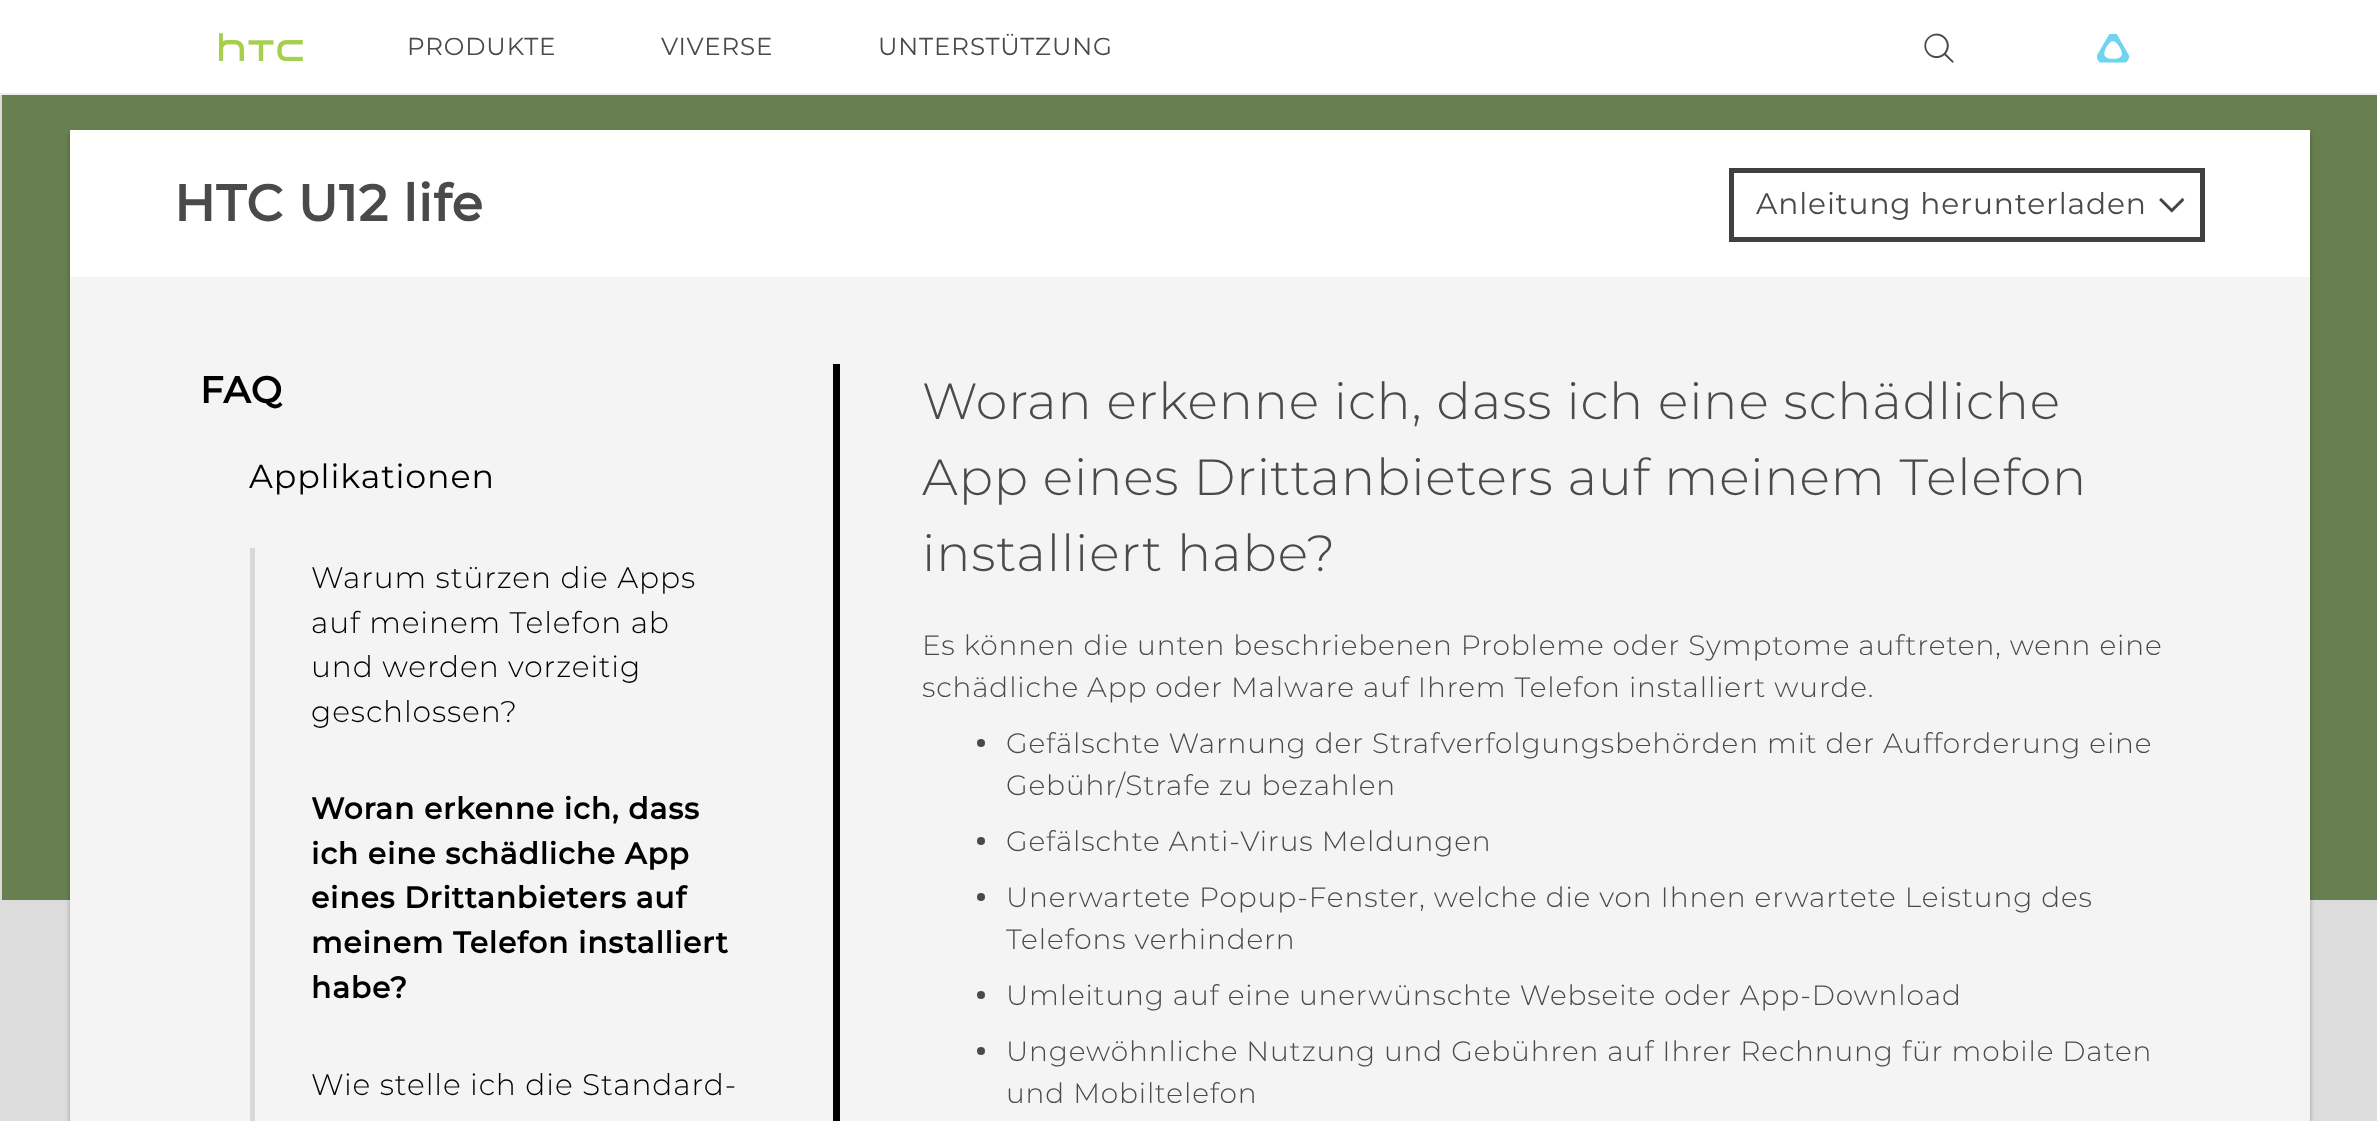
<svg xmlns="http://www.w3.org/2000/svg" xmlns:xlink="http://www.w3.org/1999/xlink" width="2377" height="1121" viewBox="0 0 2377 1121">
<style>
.cls-1{font:24.5px Montserrat;letter-spacing:0.88px;fill:#4a4a4a}
.cls-2{font:bold 50.75px Montserrat;letter-spacing:0.88px;fill:#4a4a4a}
.cls-3{font:29.75px Montserrat;letter-spacing:0.88px;fill:#4a4a4a}
.cls-4{font:bold 37px Montserrat;letter-spacing:0.88px;fill:#000000}
.cls-5{font:33.25px Montserrat;letter-spacing:0.88px;fill:#000000}
.cls-6{font:300 29.75px Montserrat;letter-spacing:0.88px;fill:#000000}
.cls-7{font:bold 29.75px Montserrat;letter-spacing:0.88px;fill:#000000}
.cls-8{font:300 50.75px Montserrat;letter-spacing:0.88px;fill:#4a4a4a}
.cls-9{font:300 28px Montserrat;letter-spacing:0.88px;fill:#4a4a4a}
</style>
<defs>
<linearGradient id="g1" gradientUnits="userSpaceOnUse" x1="1189" y1="95" x2="1189" y2="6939"><stop offset="0" stop-color="#dadada"/><stop offset="0.88" stop-color="#ececec"/><stop offset="1" stop-color="#ececec"/></linearGradient>
</defs>
<rect width="100%" height="100%" fill="#ffffff"/>
<rect fill="#efefef" x="0" y="93" width="2377" height="2"/>
<image xlink:href="image0.png" x="219" y="33" width="84" height="28"/>
<image xlink:href="image1.png" x="1924" y="33" width="30" height="30"/>
<image xlink:href="image2.png" x="2097" y="34" width="33" height="29"/>
<rect fill="url(#g1)" x="0" y="900" width="2377" height="221"/>
<rect fill="#dadada" x="0" y="95" width="2" height="805"/>
<rect fill="#68804f" x="2" y="95" width="2375" height="805"/>
<rect fill="#000000" fill-opacity="0.3" filter="blur(2.5px)" x="70" y="133" width="2240" height="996"/>
<rect fill="#ffffff" x="70" y="130" width="2240" height="147"/>
<rect fill="none" stroke="#404040" stroke-width="5" x="1731.5" y="170.5" width="471" height="69"/>
<image xlink:href="image3.png" x="2159" y="197" width="26" height="16"/>
<rect fill="#f4f4f4" x="70" y="277" width="2240" height="844"/>
<rect fill="#d8d8d8" x="250" y="548" width="5" height="573"/>
<rect fill="#000000" x="833" y="364" width="7" height="757"/>
<circle fill="#4a4a4a" cx="981" cy="743" r="4"/>
<circle fill="#4a4a4a" cx="981" cy="841" r="4"/>
<circle fill="#4a4a4a" cx="981" cy="897" r="4"/>
<circle fill="#4a4a4a" cx="981" cy="995" r="4"/>
<circle fill="#4a4a4a" cx="981" cy="1051" r="4"/>
<text class="cls-1" x="407" y="55">PRODUKTE</text>
<text class="cls-1" x="661" y="55">VIVERSE</text>
<text class="cls-1" x="878" y="55">UNTERSTÜTZUNG</text>
<text class="cls-2" x="174" y="221">HTC U12 life</text>
<text class="cls-3" x="1756" y="214">Anleitung herunterladen</text>
<text class="cls-4" x="200" y="403">FAQ</text>
<text class="cls-5" x="249" y="488">Applikationen</text>
<text class="cls-6"><tspan x="311" y="588">Warum stürzen die Apps</tspan><tspan x="311" y="633">auf meinem Telefon ab</tspan><tspan x="311" y="677">und werden vorzeitig</tspan><tspan x="311" y="722">geschlossen?</tspan></text>
<text class="cls-7"><tspan x="311" y="819">Woran erkenne ich, dass</tspan><tspan x="311" y="864">ich eine schädliche App</tspan><tspan x="311" y="908">eines Drittanbieters auf</tspan><tspan x="311" y="953">meinem Telefon installiert</tspan><tspan x="311" y="998">habe?</tspan></text>
<text class="cls-6" x="311" y="1095">Wie stelle ich die Standard-</text>
<text class="cls-8"><tspan x="922" y="419">Woran erkenne ich, dass ich eine schädliche</tspan><tspan x="922" y="495">App eines Drittanbieters auf meinem Telefon</tspan><tspan x="922" y="571">installiert habe?</tspan></text>
<text class="cls-9"><tspan x="922" y="655">Es können die unten beschriebenen Probleme oder Symptome auftreten, wenn eine</tspan><tspan x="922" y="697">schädliche App oder Malware auf Ihrem Telefon installiert wurde.</tspan></text>
<text class="cls-9"><tspan x="1006" y="753">Gefälschte Warnung der Strafverfolgungsbehörden mit der Aufforderung eine</tspan><tspan x="1006" y="795">Gebühr/Strafe zu bezahlen</tspan></text>
<text class="cls-9" x="1006" y="851">Gefälschte Anti-Virus Meldungen</text>
<text class="cls-9"><tspan x="1006" y="907">Unerwartete Popup-Fenster, welche die von Ihnen erwartete Leistung des</tspan><tspan x="1006" y="949">Telefons verhindern</tspan></text>
<text class="cls-9" x="1006" y="1005">Umleitung auf eine unerwünschte Webseite oder App-Download</text>
<text class="cls-9"><tspan x="1006" y="1061">Ungewöhnliche Nutzung und Gebühren auf Ihrer Rechnung für mobile Daten</tspan><tspan x="1006" y="1103">und Mobiltelefon</tspan></text>
</svg>
